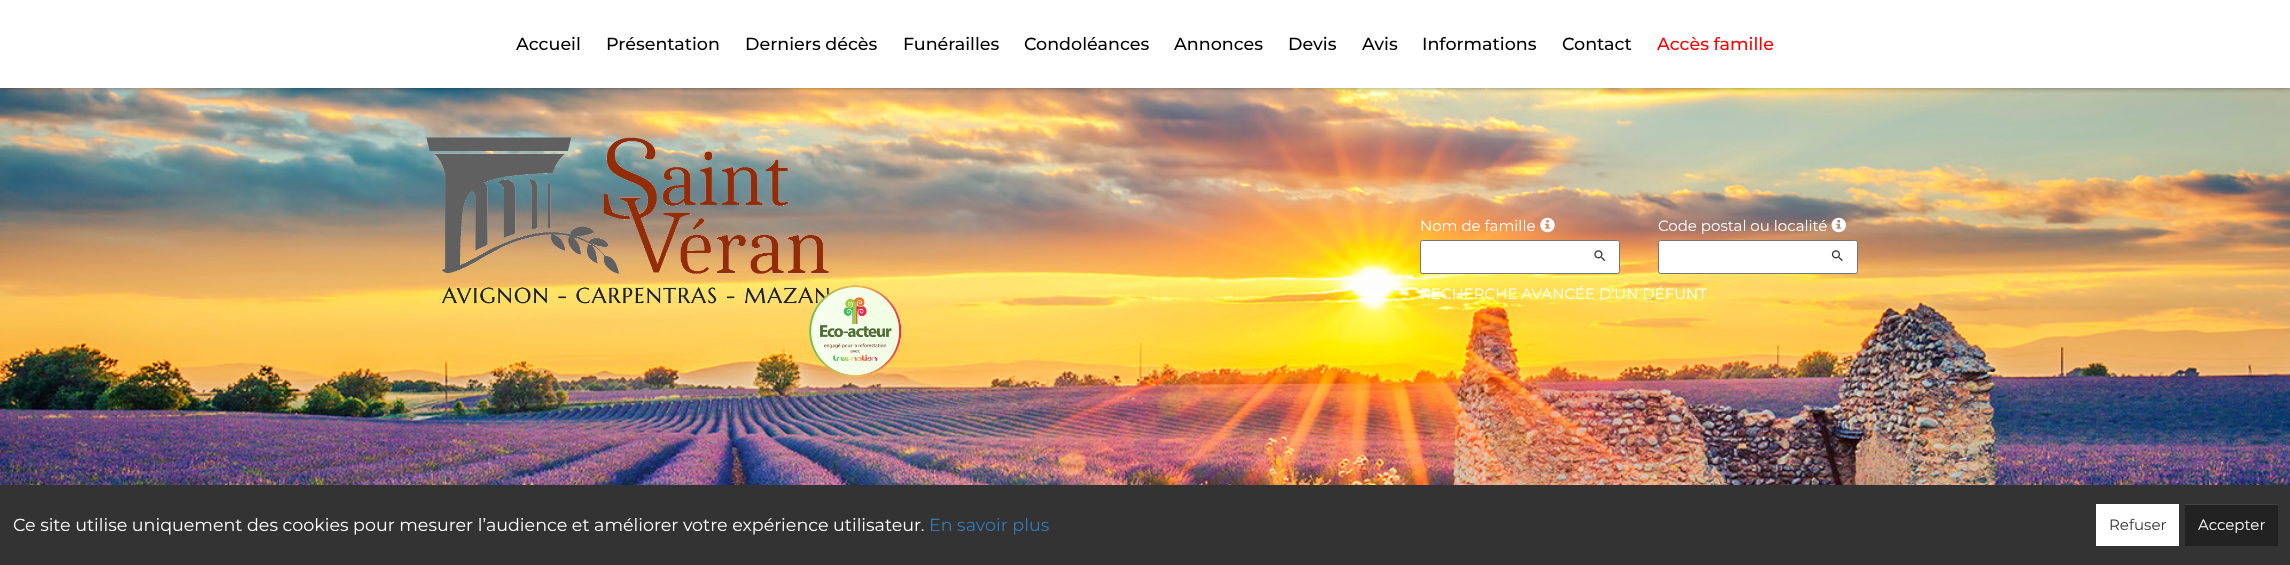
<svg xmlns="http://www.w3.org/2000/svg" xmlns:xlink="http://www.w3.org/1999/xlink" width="2290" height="565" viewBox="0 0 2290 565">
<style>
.cls-1{font:100 17.5px 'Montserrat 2';fill:#000000}
.cls-2{font:100 17.5px 'Montserrat 2';fill:#ff0000}
.cls-3{font:100 15px Montserrat;fill:#ffffff}
.cls-4{font:100 17.5px Montserrat;fill:#ffffff}
.cls-5{font:100 17.5px Montserrat;fill:#337ab7}
.cls-6{font:100 15px Montserrat;fill:#333333}
</style>
<rect width="100%" height="100%" fill="#ffffff"/>
<image xlink:href="image0.png" x="0" y="88" width="2290" height="397"/>
<rect fill="#000000" fill-opacity="0.3" filter="blur(2px)" x="0" y="1" width="2290" height="88"/>
<rect fill="#ffffff" x="0" y="0" width="2290" height="88"/>
<image xlink:href="image1.png" x="426" y="137" width="476" height="240"/>
<image xlink:href="image2.png" x="1540" y="217" width="15" height="16"/>
<rect fill="#ffffff" stroke="#767676" x="1420.5" y="240.5" width="199" height="33" rx="2"/>
<image xlink:href="image3.png" x="1594" y="250" width="12" height="12"/>
<image xlink:href="image4.png" x="1831" y="217" width="15" height="16"/>
<rect fill="#ffffff" stroke="#767676" x="1658.5" y="240.5" width="199" height="33" rx="2"/>
<image xlink:href="image5.png" x="1831" y="250" width="12" height="12"/>
<rect fill="#333333" x="0" y="485" width="2290" height="80"/>
<rect fill="#ffffff" x="2096" y="504" width="83" height="42"/>
<rect fill="#222222" x="2185" y="505" width="93" height="41"/>
<rect fill="#434343" x="2185" y="504" width="93" height="1"/>
<text class="cls-1" x="516" y="50">Accueil</text>
<text class="cls-1" x="606" y="50">Présentation</text>
<text class="cls-1" x="745" y="50">Derniers décès</text>
<text class="cls-1" x="903" y="50">Funérailles</text>
<text class="cls-1" x="1024" y="50">Condoléances</text>
<text class="cls-1" x="1174" y="50">Annonces</text>
<text class="cls-1" x="1288" y="50">Devis</text>
<text class="cls-1" x="1362" y="50">Avis</text>
<text class="cls-1" x="1422" y="50">Informations</text>
<text class="cls-1" x="1562" y="50">Contact</text>
<text class="cls-2" x="1657" y="50">Accès famille</text>
<text class="cls-3" x="1420" y="231">Nom de famille</text>
<text class="cls-3" x="1658" y="231">Code postal ou localité</text>
<text class="cls-3" x="1420" y="299">RECHERCHE AVANCÉE D'UN DÉFUNT</text>
<text class="cls-4" x="13" y="531">Ce site utilise uniquement des cookies pour mesurer l’audience et améliorer votre expérience utilisateur.</text>
<text class="cls-5" x="929" y="531">En savoir plus</text>
<text class="cls-6" x="2109" y="530">Refuser</text>
<text class="cls-3" x="2198" y="530">Accepter</text>
</svg>
